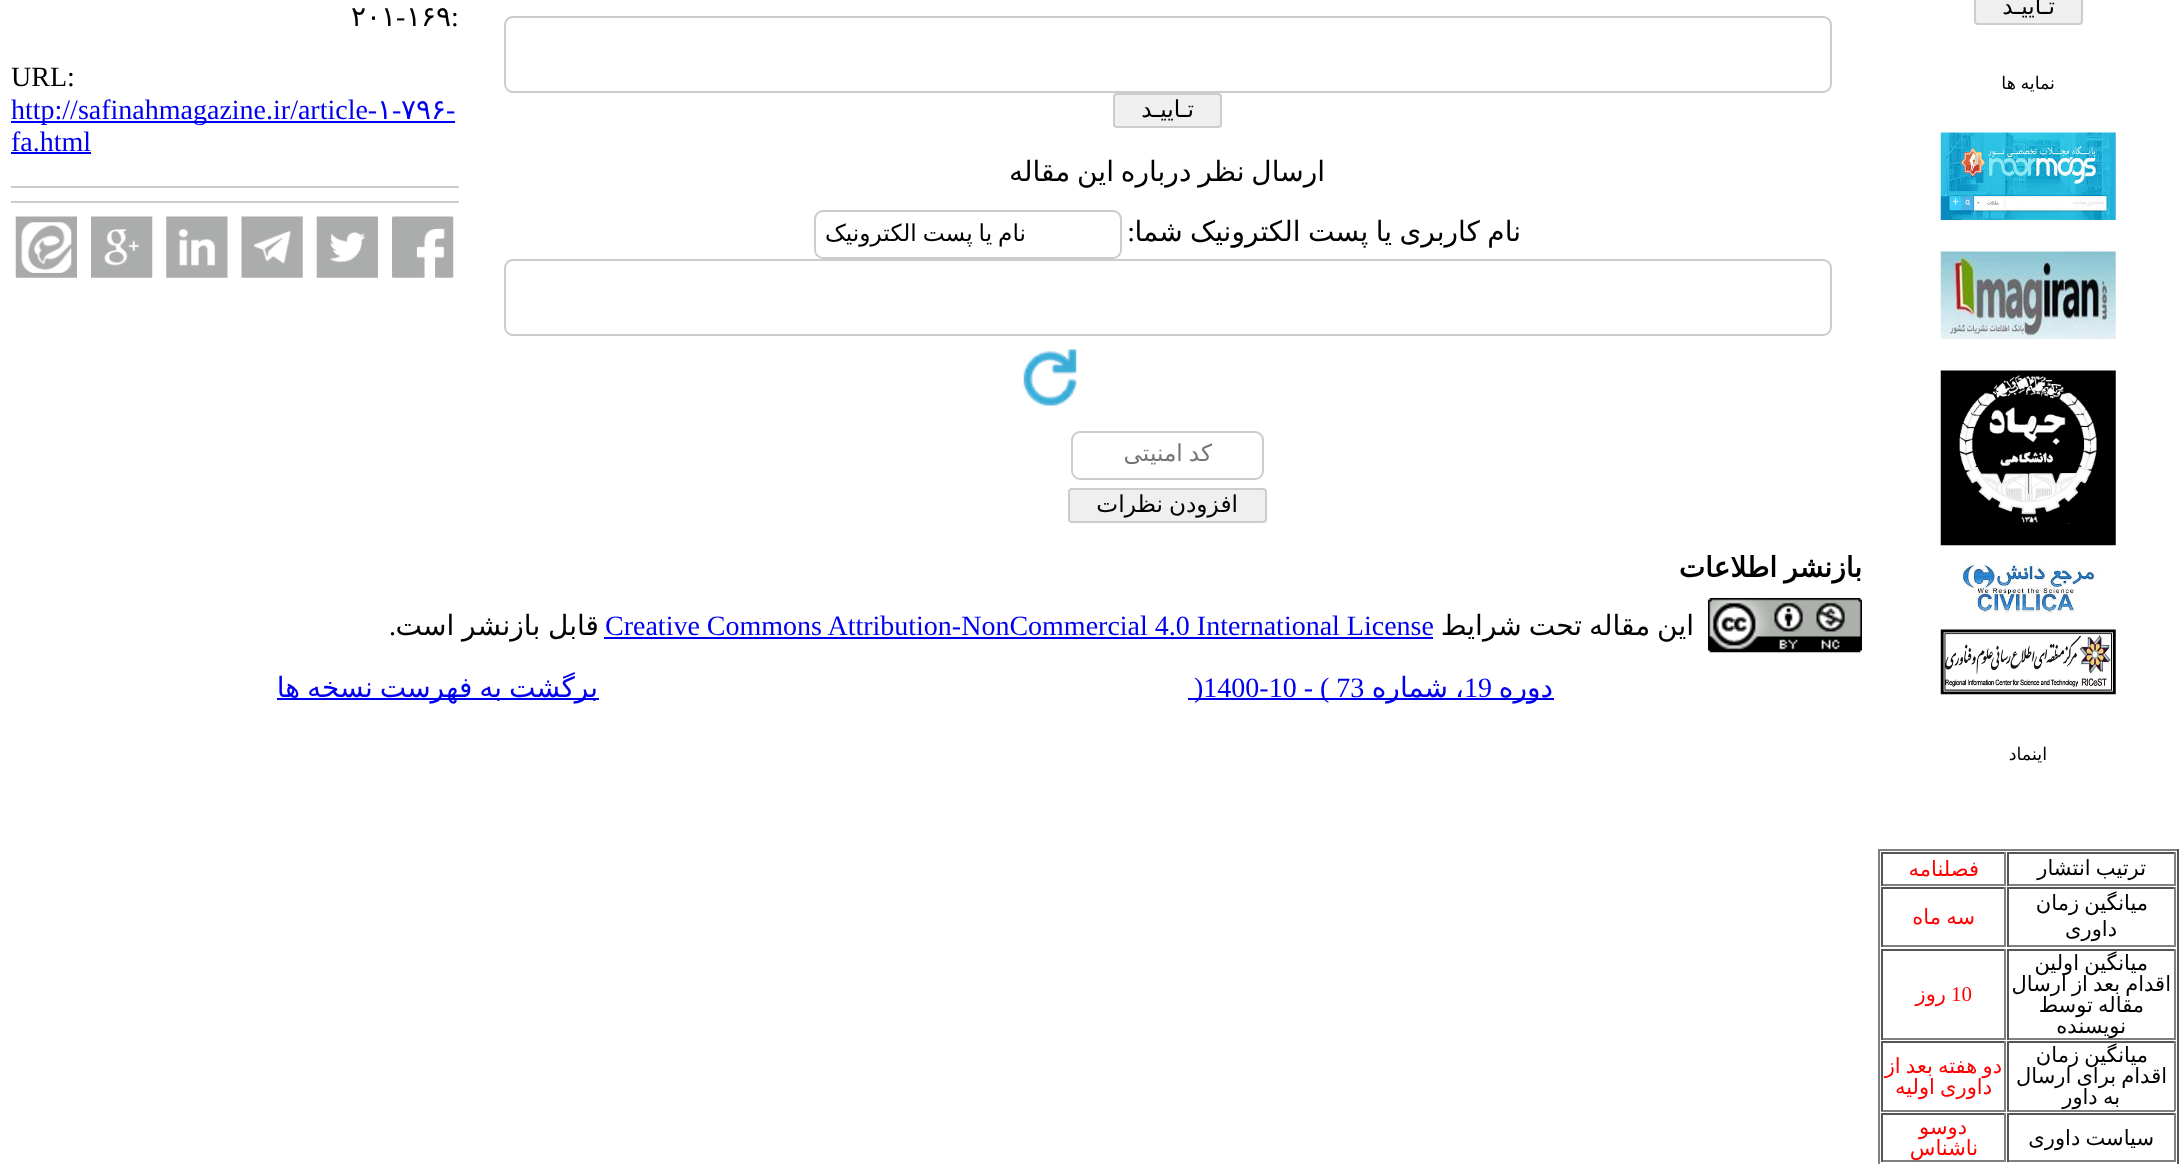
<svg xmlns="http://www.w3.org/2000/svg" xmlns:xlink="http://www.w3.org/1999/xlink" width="2181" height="1164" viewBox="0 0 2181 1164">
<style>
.cls-1{font:23.25px DejaVu Sans;direction:rtl;fill:#000000}
.cls-2{font:17.5px DejaVu Sans;direction:rtl;fill:#000000}
.cls-3{font:21px DejaVu Sans;direction:rtl;fill:#000000}
.cls-4{font:21px DejaVu Sans;direction:rtl;fill:#ff0000}
.cls-5{font:21px Liberation Serif;fill:#ff0000}
.cls-6{font:28px Liberation Serif;fill:#000000}
.cls-7{font:28px DejaVu Sans;fill:#000000}
.cls-8{font:28px Liberation Serif;fill:#0000ee}
.cls-9{font:28px DejaVu Sans;fill:#0000ee}
.cls-10{font:28px DejaVu Sans;direction:rtl;fill:#000000}
.cls-11{font:28px Liberation Serif;direction:rtl;fill:#000000}
.cls-12{font:23.25px DejaVu Sans;direction:rtl;fill:#757575}
.cls-13{font:bold 28px DejaVu Sans;direction:rtl;fill:#000000}
.cls-14{font:28px DejaVu Sans;direction:rtl;fill:#0000ee}
</style>
<rect width="100%" height="100%" fill="#ffffff"/>
<rect fill="#efefef" stroke="#cccccc" stroke-width="2" x="1975" y="-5" width="107" height="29" rx="3"/>
<image xlink:href="image0.png" x="1940" y="132" width="176" height="88"/>
<image xlink:href="image1.png" x="1940" y="251" width="176" height="88"/>
<image xlink:href="image2.png" x="1940" y="370" width="176" height="176"/>
<image xlink:href="image3.png" x="1940" y="545" width="176" height="70"/>
<image xlink:href="image4.png" x="1940" y="629" width="176" height="66"/>
<rect fill="#808080" x="1878" y="849" width="301" height="2"/>
<rect fill="#555555" x="2177" y="849" width="2" height="315"/>
<rect fill="#808080" x="1878" y="849" width="2" height="315"/>
<rect fill="#555555" x="2007" y="852" width="168" height="2"/>
<rect fill="#808080" x="2174" y="852" width="2" height="34"/>
<rect fill="#808080" x="2007" y="884" width="168" height="2"/>
<rect fill="#555555" x="2007" y="852" width="2" height="34"/>
<rect fill="#555555" x="1881" y="852" width="125" height="2"/>
<rect fill="#808080" x="2004" y="852" width="2" height="34"/>
<rect fill="#808080" x="1881" y="884" width="125" height="2"/>
<rect fill="#555555" x="1881" y="852" width="2" height="34"/>
<rect fill="#555555" x="2007" y="887" width="168" height="2"/>
<rect fill="#808080" x="2174" y="887" width="2" height="60"/>
<rect fill="#808080" x="2007" y="945" width="168" height="2"/>
<rect fill="#555555" x="2007" y="887" width="2" height="60"/>
<rect fill="#555555" x="1881" y="887" width="125" height="2"/>
<rect fill="#808080" x="2004" y="887" width="2" height="60"/>
<rect fill="#808080" x="1881" y="945" width="125" height="2"/>
<rect fill="#555555" x="1881" y="887" width="2" height="60"/>
<rect fill="#555555" x="2007" y="949" width="168" height="2"/>
<rect fill="#808080" x="2174" y="949" width="2" height="91"/>
<rect fill="#808080" x="2007" y="1038" width="168" height="2"/>
<rect fill="#555555" x="2007" y="949" width="2" height="91"/>
<rect fill="#555555" x="1881" y="949" width="125" height="2"/>
<rect fill="#808080" x="2004" y="949" width="2" height="91"/>
<rect fill="#808080" x="1881" y="1038" width="125" height="2"/>
<rect fill="#555555" x="1881" y="949" width="2" height="91"/>
<rect fill="#555555" x="2007" y="1041" width="168" height="2"/>
<rect fill="#808080" x="2174" y="1041" width="2" height="70"/>
<rect fill="#808080" x="2007" y="1110" width="168" height="2"/>
<rect fill="#555555" x="2007" y="1041" width="2" height="70"/>
<rect fill="#555555" x="1881" y="1041" width="125" height="2"/>
<rect fill="#808080" x="2004" y="1041" width="2" height="70"/>
<rect fill="#808080" x="1881" y="1110" width="125" height="2"/>
<rect fill="#555555" x="1881" y="1041" width="2" height="70"/>
<rect fill="#555555" x="2007" y="1113" width="168" height="2"/>
<rect fill="#808080" x="2174" y="1113" width="2" height="49"/>
<rect fill="#808080" x="2007" y="1160" width="168" height="2"/>
<rect fill="#555555" x="2007" y="1113" width="2" height="49"/>
<rect fill="#555555" x="1881" y="1113" width="125" height="2"/>
<rect fill="#808080" x="2004" y="1113" width="2" height="49"/>
<rect fill="#808080" x="1881" y="1160" width="125" height="2"/>
<rect fill="#555555" x="1881" y="1113" width="2" height="49"/>
<rect fill="#0000ee" x="11" y="121" width="444" height="2"/>
<rect fill="#0000ee" x="11" y="152" width="80" height="2"/>
<rect fill="#cccccc" x="11" y="186" width="448" height="2"/>
<rect fill="#cccccc" x="11" y="201" width="448" height="2"/>
<image xlink:href="image5.png" x="392" y="216" width="62" height="62"/>
<image xlink:href="image6.png" x="316" y="216" width="62" height="62"/>
<image xlink:href="image7.png" x="241" y="216" width="62" height="62"/>
<image xlink:href="image8.png" x="166" y="216" width="62" height="62"/>
<image xlink:href="image9.png" x="91" y="216" width="62" height="62"/>
<image xlink:href="image10.png" x="15" y="216" width="62" height="62"/>
<rect fill="none" stroke="#cccccc" stroke-width="2" x="505" y="17" width="1326" height="75" rx="8"/>
<rect fill="#efefef" stroke="#cccccc" stroke-width="2" x="1114" y="94" width="107" height="33" rx="3"/>
<rect fill="none" stroke="#cccccc" stroke-width="2" x="815" y="211" width="306" height="47" rx="8"/>
<rect fill="none" stroke="#cccccc" stroke-width="2" x="505" y="260" width="1326" height="75" rx="8"/>
<image xlink:href="image11.png" x="1023" y="349" width="54" height="57"/>
<rect fill="none" stroke="#cccccc" stroke-width="2" x="1072" y="432" width="191" height="47" rx="8"/>
<rect fill="#efefef" stroke="#cccccc" stroke-width="2" x="1069" y="489" width="197" height="33" rx="3"/>
<image xlink:href="image12.png" x="1708" y="598" width="154" height="55"/>
<rect fill="#0000ee" x="604" y="637" width="829" height="2"/>
<rect fill="#0000ee" x="1188" y="698" width="366" height="2"/>
<rect fill="#0000ee" x="277" y="698" width="322" height="2"/>
<text class="cls-1" x="2055" y="14">تـاییـد</text>
<text class="cls-2" x="2055" y="89" word-spacing="-1">نمایه ها</text>
<text class="cls-2" x="2047" y="760">اینماد</text>
<text class="cls-3" x="2146" y="875" word-spacing="-1.5">ترتیب انتشار</text>
<text class="cls-4" x="1979" y="876">فصلنامه</text>
<text class="cls-3" x="2148" y="910" word-spacing="-1.5">میانگین زمان</text>
<text class="cls-3" x="2117" y="936">داوری</text>
<text class="cls-4" x="1975" y="924" word-spacing="-1.5">سه ماه</text>
<text class="cls-3" x="2148" y="970" word-spacing="-1.5">میانگین اولین</text>
<text class="cls-3" x="2171" y="991" word-spacing="-1.5">اقدام بعد از ارسال</text>
<text class="cls-3" x="2144" y="1012" word-spacing="-1.5">مقاله توسط</text>
<text class="cls-3" x="2126" y="1033">نویسنده</text>
<text class="cls-5" x="1951" y="1001">10</text>
<text class="cls-4" x="1946" y="1001">روز</text>
<text class="cls-3" x="2148" y="1062" word-spacing="-1.5">میانگین زمان</text>
<text class="cls-3" x="2167" y="1083" word-spacing="-1.5">اقدام برای ارسال</text>
<text class="cls-3" x="2120" y="1104" word-spacing="-1.5">به داور</text>
<text class="cls-4" x="2002" y="1073" word-spacing="-1.5">دو هفته بعد از</text>
<text class="cls-4" x="1992" y="1094" word-spacing="-1.5">داوری اولیه</text>
<text class="cls-3" x="2154" y="1145" word-spacing="-1.5">سیاست داوری</text>
<text class="cls-4" x="1967" y="1134">دوسو</text>
<text class="cls-4" x="1978" y="1155">ناشناس</text>
<text class="cls-6" x="451" y="26">:</text>
<text class="cls-7" x="406" y="26">۱۶۹</text>
<text class="cls-6" x="396" y="26">-</text>
<text class="cls-7" x="351" y="26">۲۰۱</text>
<text class="cls-6" x="11" y="86">URL:</text>
<text class="cls-8" x="446" y="119">-</text>
<text class="cls-9" x="401" y="119">۷۹۶</text>
<text class="cls-8" x="392" y="119">-</text>
<text class="cls-9" x="377" y="119">۱</text>
<text class="cls-8"><tspan x="11" y="119">http://safinahmagazine.ir/article-</tspan><tspan x="11" y="151">fa.html</tspan></text>
<text class="cls-1" x="1194" y="117">تـاییـد</text>
<text class="cls-10" x="1325" y="181" word-spacing="-2">ارسال نظر درباره این مقاله</text>
<text class="cls-10" x="1521" y="241" word-spacing="-1.5">نام کاربری یا پست الکترونیک شما</text>
<text class="cls-11" x="1135" y="241">:</text>
<text class="cls-1" x="1026" y="241" word-spacing="-1.5">نام یا پست الکترونیک</text>
<text class="cls-12" x="1212" y="461" word-spacing="-1.5">کد امنیتی</text>
<text class="cls-1" x="1238" y="512" word-spacing="-1.5">افزودن نظرات</text>
<text class="cls-13" x="1862" y="577" word-spacing="-2">بازنشر اطلاعات</text>
<text class="cls-10" x="1694" y="635" word-spacing="-2">این مقاله تحت شرایط</text>
<text class="cls-8" x="605" y="635">Creative Commons Attribution-NonCommercial 4.0 International License</text>
<text class="cls-10" x="599" y="635" word-spacing="-1">قابل بازنشر است</text>
<text class="cls-11" x="396" y="635">.</text>
<text class="cls-14" x="1553" y="697">دوره</text>
<text class="cls-8" x="1464" y="697">19</text>
<text class="cls-14" x="1464" y="697" word-spacing="-2">، شماره</text>
<text class="cls-8" x="1194" y="697">)1400-10 - ( 73</text>
<text class="cls-14" x="598" y="697" word-spacing="-2">برگشت به فهرست نسخه ها</text>
</svg>
